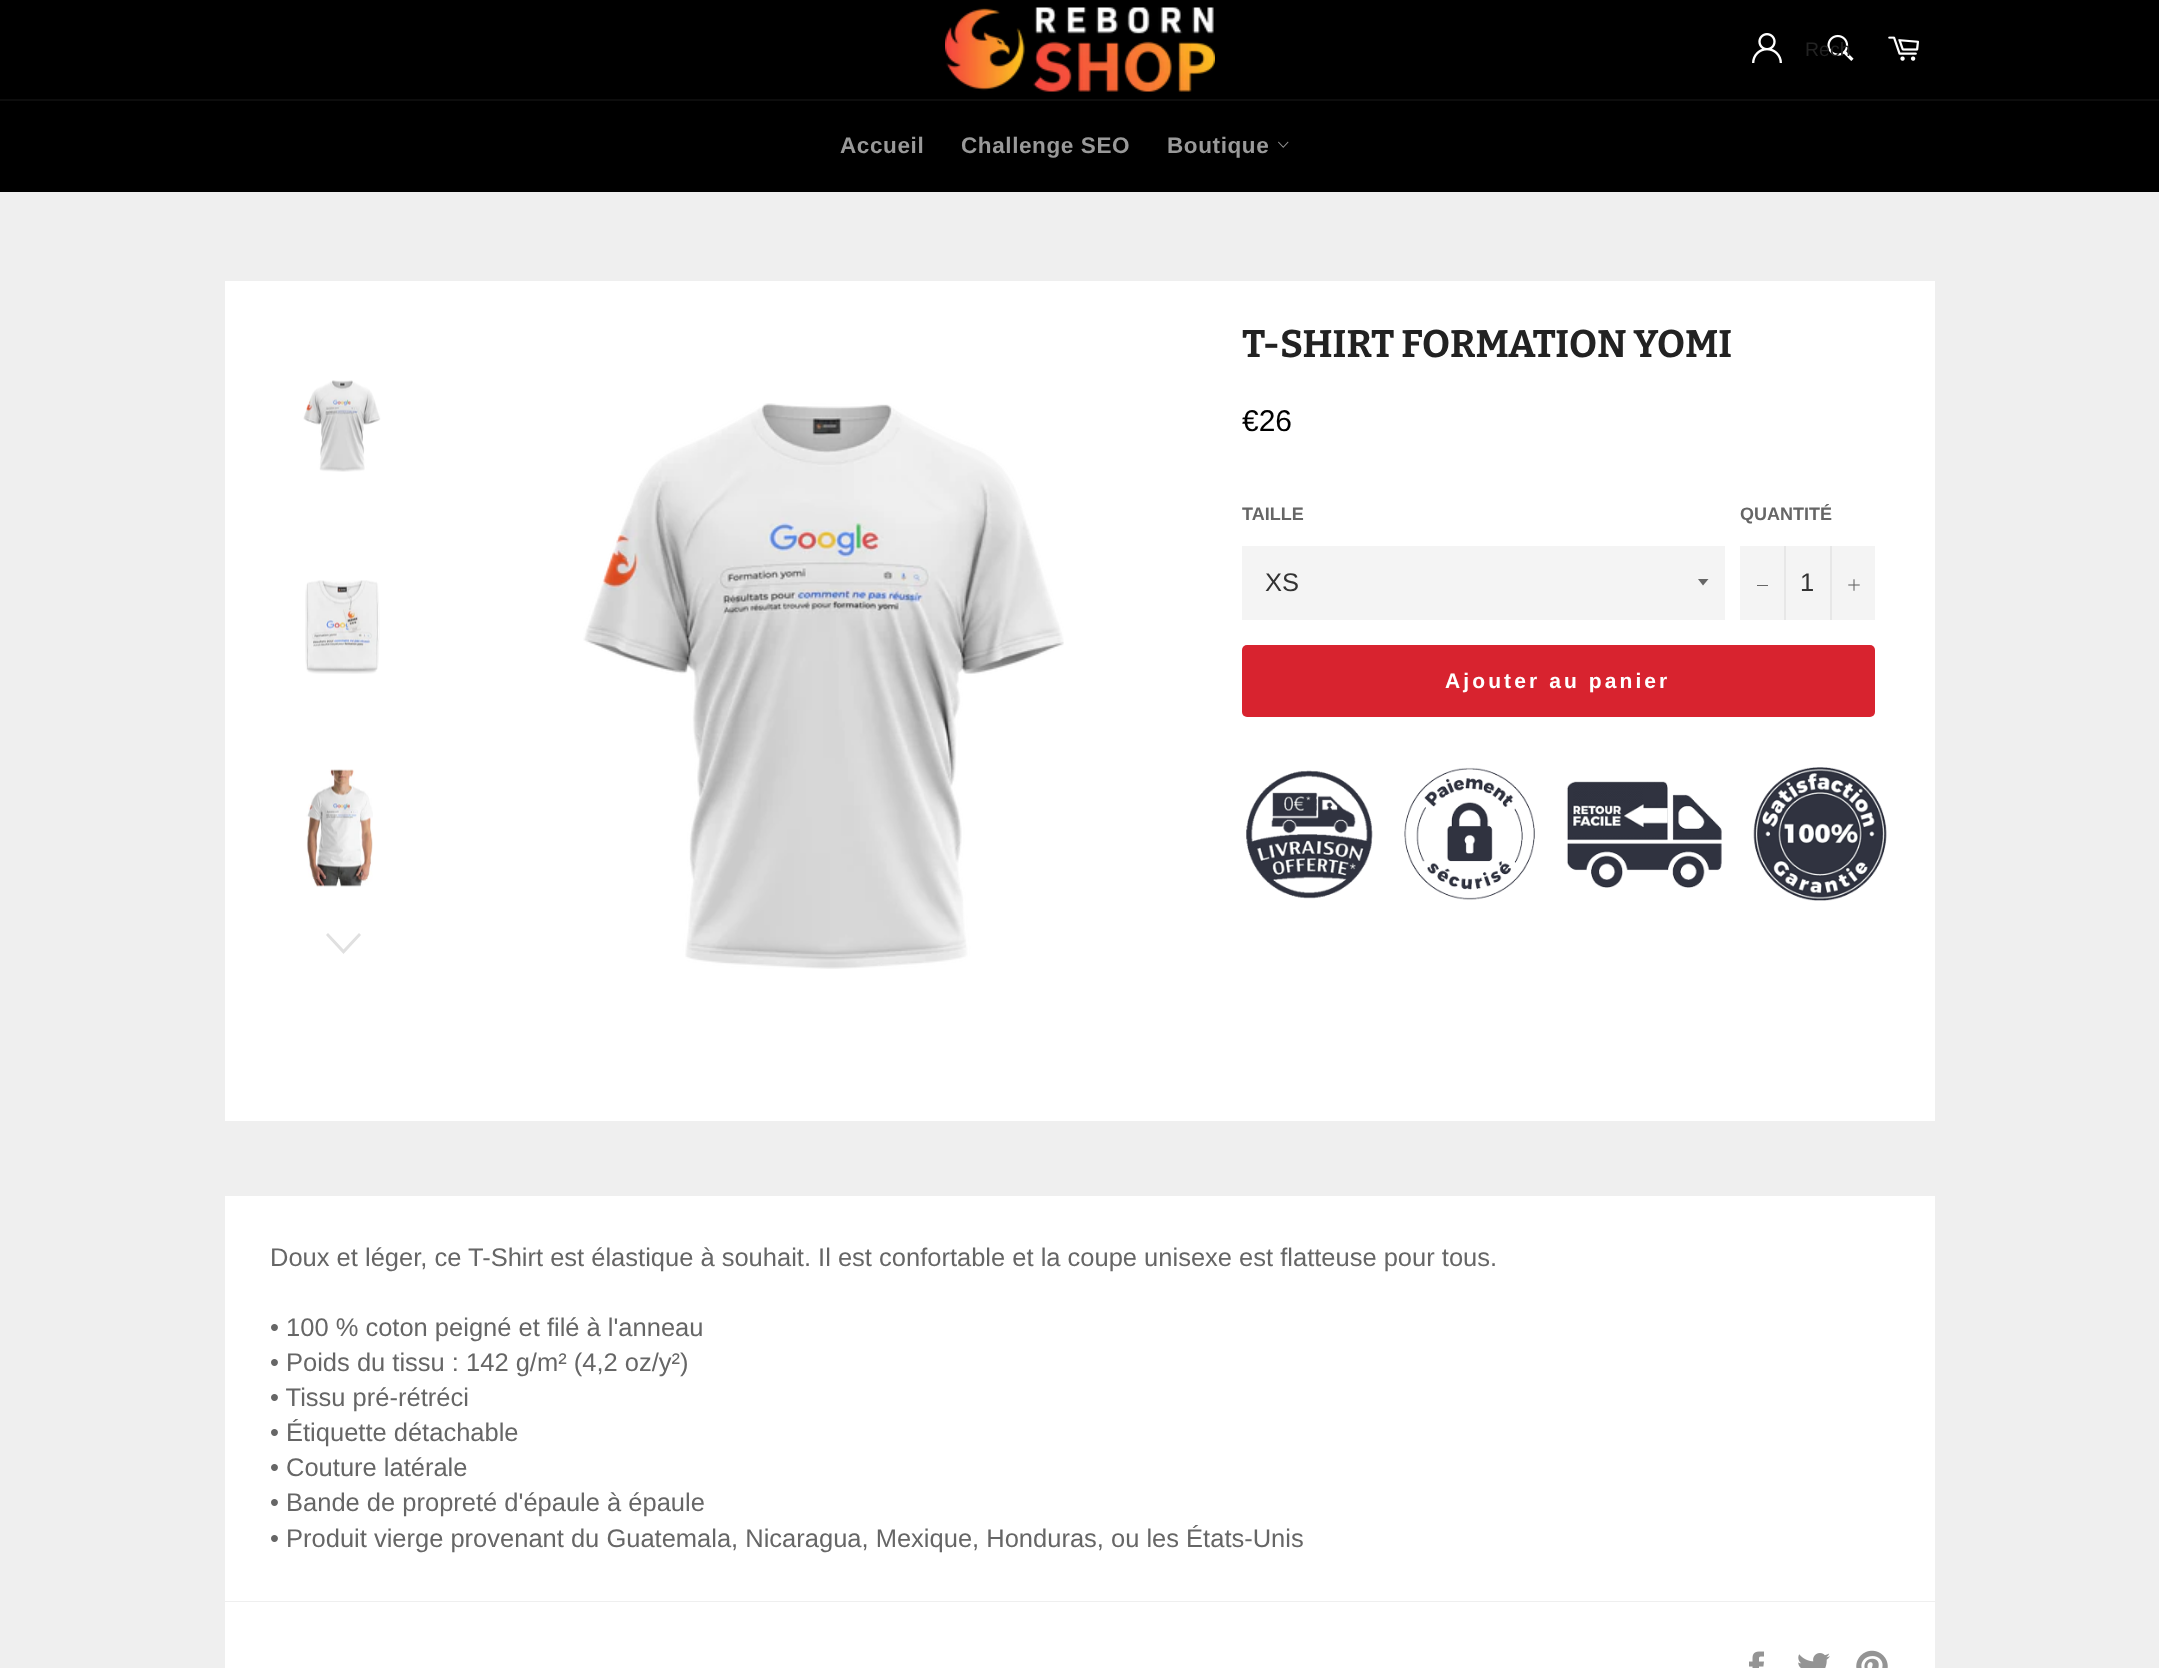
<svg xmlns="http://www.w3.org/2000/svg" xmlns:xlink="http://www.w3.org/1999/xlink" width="2159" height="1668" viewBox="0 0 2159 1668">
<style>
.cls-1{font:19.5px Liberation Sans;fill:#222222}
.cls-2{font:bold 22.5px Liberation Sans;letter-spacing:0.6px;fill:#999999}
.cls-3{font:bold 38.25px Bitter;fill:#222222}
.cls-4{font:30px Liberation Sans;fill:#000000}
.cls-5{font:bold 18px Liberation Sans;fill:#666666}
.cls-6{font:25.5px Liberation Sans;fill:#333333}
.cls-7{font:bold 21px Liberation Sans;letter-spacing:3.1px;fill:#ffffff}
.cls-8{font:25.5px Liberation Sans;fill:#666666}
</style>
<rect width="100%" height="100%" fill="#efefef"/>
<rect fill="#000000" x="0" y="0" width="2159" height="99"/>
<image xlink:href="image0.png" x="945" y="7" width="270" height="85"/>
<image xlink:href="image1.png" x="1752" y="33" width="30" height="30"/>
<image xlink:href="image2.png" x="1827" y="34" width="27" height="27"/>
<image xlink:href="image3.png" x="1888" y="36" width="31" height="25"/>
<rect fill="#000000" x="0" y="101" width="2159" height="91"/>
<rect fill="#0d0d0d" x="0" y="99" width="2159" height="2"/>
<image xlink:href="image4.png" x="1278" y="141" width="11" height="7"/>
<rect fill="#ffffff" x="225" y="281" width="1710" height="840"/>
<image xlink:href="image5.png" x="303" y="380" width="78" height="92"/>
<image xlink:href="image6.png" x="305" y="580" width="75" height="94"/>
<image xlink:href="image7.png" x="306" y="769" width="67" height="118"/>
<path fill="#e0e0e0" d="M359 933L361 935L343.5 954L326 935L328 933L343.5 949.5Z"/>
<image xlink:href="image8.png" x="583" y="403" width="481" height="566"/>
<rect fill="#f4f4f4" x="1242" y="546" width="483" height="74"/>
<path fill="#666666" d="M1698 579L1703 585.5L1708.5 579Z"/>
<rect fill="#f4f4f4" x="1740" y="546" width="135" height="74"/>
<rect fill="#e7e7e7" x="1784" y="546" width="2" height="74"/>
<rect fill="#666666" x="1757" y="585" width="11" height="1"/>
<rect fill="#e7e7e7" x="1830" y="546" width="2" height="74"/>
<image xlink:href="image9.png" x="1848" y="579" width="12" height="12"/>
<rect fill="#d8232f" x="1242" y="645" width="633" height="72" rx="5"/>
<image xlink:href="image10.png" x="1246" y="767" width="641" height="134"/>
<rect fill="#ffffff" x="225" y="1196" width="1710" height="405"/>
<rect fill="#ffffff" x="225" y="1602" width="1710" height="66"/>
<image xlink:href="image11.png" x="1749" y="1651" width="15" height="17"/>
<image xlink:href="image12.png" x="1798" y="1653" width="32" height="15"/>
<image xlink:href="image13.png" x="1856" y="1650" width="32" height="18"/>
<text class="cls-1" x="1805" y="56">Rech</text>
<text class="cls-2" x="840" y="153">Accueil</text>
<text class="cls-2" x="961" y="153">Challenge SEO</text>
<text class="cls-2" x="1167" y="153">Boutique</text>
<text class="cls-3" x="1242" y="357">T-SHIRT FORMATION YOMI</text>
<text class="cls-4" x="1242" y="431">€26</text>
<text class="cls-5" x="1242" y="520">TAILLE</text>
<text class="cls-6" x="1265" y="591">XS</text>
<text class="cls-5" x="1740" y="520">QUANTITÉ</text>
<text class="cls-6" x="1800" y="591">1</text>
<text class="cls-7" x="1445" y="688">Ajouter au panier</text>
<text class="cls-8" x="270" y="1266">Doux et léger, ce T-Shirt est élastique à souhait. Il est confortable et la coupe unisexe est flatteuse pour tous.</text>
<text class="cls-8"><tspan x="270" y="1336">• 100 % coton peigné et filé à l'anneau</tspan><tspan x="270" y="1371">• Poids du tissu : 142 g/m² (4,2 oz/y²)</tspan><tspan x="270" y="1406">• Tissu pré-rétréci</tspan><tspan x="270" y="1441">• Étiquette détachable</tspan><tspan x="270" y="1476">• Couture latérale</tspan><tspan x="270" y="1511">• Bande de propreté d'épaule à épaule</tspan><tspan x="270" y="1547">• Produit vierge provenant du Guatemala, Nicaragua, Mexique, Honduras, ou les États-Unis</tspan></text>
</svg>
